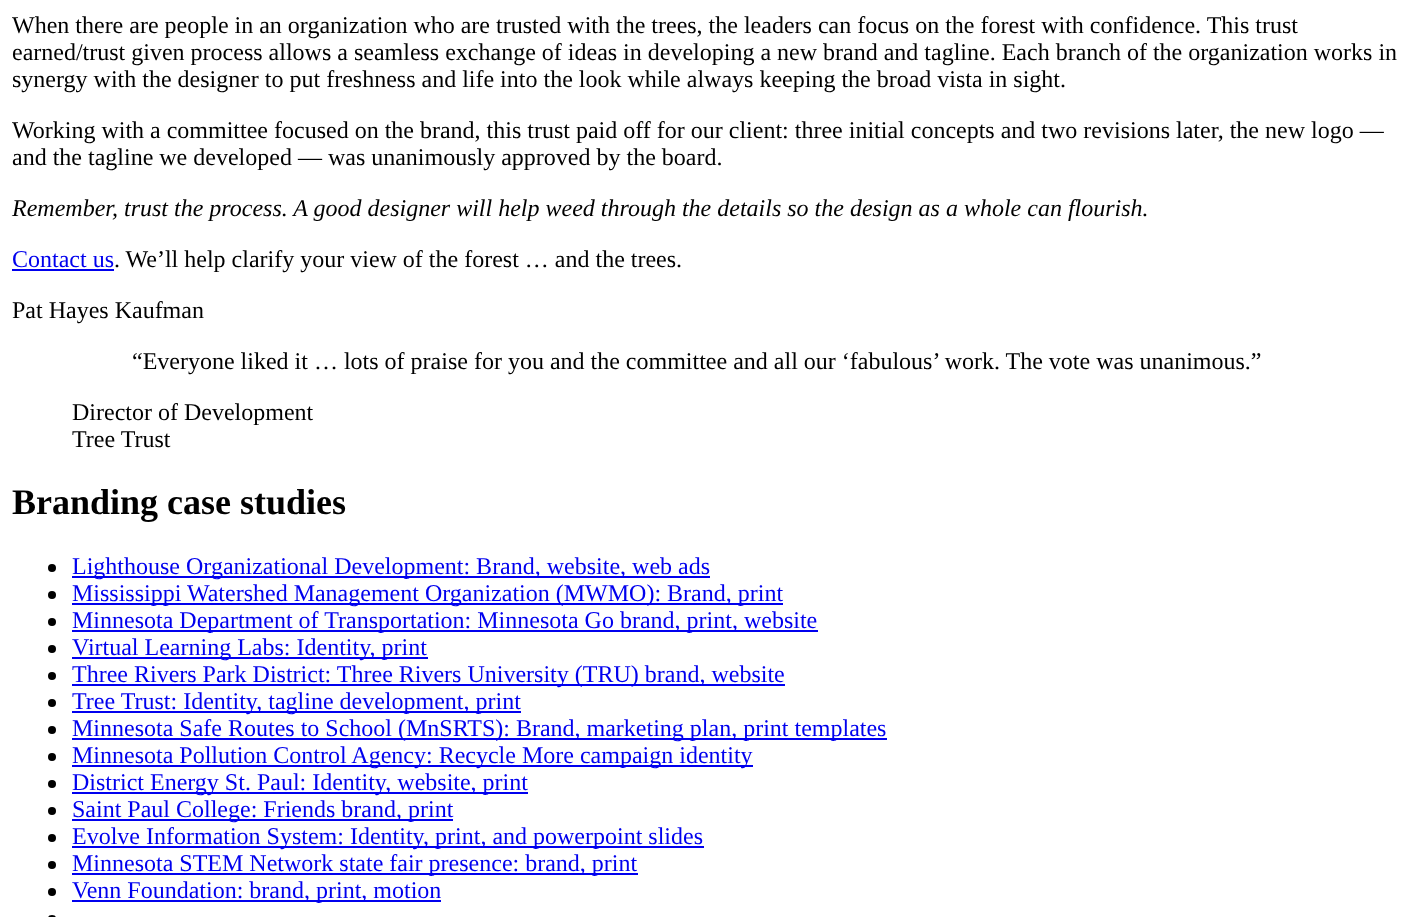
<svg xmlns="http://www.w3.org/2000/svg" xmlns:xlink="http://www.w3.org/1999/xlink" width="1422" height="917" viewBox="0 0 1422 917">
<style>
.cls-1{font:24px Liberation Serif;fill:#000000}
.cls-2{font:italic 24px Liberation Serif;fill:#000000}
.cls-3{font:24px Liberation Serif;fill:#0000ee}
.cls-4{font:bold 36px Liberation Serif;fill:#000000}
</style>
<rect width="100%" height="100%" fill="#ffffff"/>
<rect fill="#0000ee" x="12" y="269" width="102" height="2"/>
<circle fill="#000000" cx="52" cy="568" r="4"/>
<rect fill="#0000ee" x="72" y="576" width="638" height="2"/>
<circle fill="#000000" cx="52" cy="595" r="4"/>
<rect fill="#0000ee" x="72" y="603" width="711" height="2"/>
<circle fill="#000000" cx="52" cy="622" r="4"/>
<rect fill="#0000ee" x="72" y="630" width="746" height="2"/>
<circle fill="#000000" cx="52" cy="649" r="4"/>
<rect fill="#0000ee" x="72" y="657" width="356" height="2"/>
<circle fill="#000000" cx="52" cy="676" r="4"/>
<rect fill="#0000ee" x="72" y="684" width="713" height="2"/>
<circle fill="#000000" cx="52" cy="703" r="4"/>
<rect fill="#0000ee" x="72" y="711" width="449" height="2"/>
<circle fill="#000000" cx="52" cy="730" r="4"/>
<rect fill="#0000ee" x="72" y="738" width="815" height="2"/>
<circle fill="#000000" cx="52" cy="757" r="4"/>
<rect fill="#0000ee" x="72" y="765" width="681" height="2"/>
<circle fill="#000000" cx="52" cy="784" r="4"/>
<rect fill="#0000ee" x="72" y="792" width="456" height="2"/>
<circle fill="#000000" cx="52" cy="811" r="4"/>
<rect fill="#0000ee" x="72" y="819" width="381" height="2"/>
<circle fill="#000000" cx="52" cy="838" r="4"/>
<rect fill="#0000ee" x="72" y="846" width="632" height="2"/>
<circle fill="#000000" cx="52" cy="865" r="4"/>
<rect fill="#0000ee" x="72" y="873" width="566" height="2"/>
<circle fill="#000000" cx="52" cy="892" r="4"/>
<rect fill="#0000ee" x="72" y="900" width="369" height="2"/>
<rect fill="#000000" x="48" y="915" width="8" height="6" rx="4"/>
<text class="cls-1"><tspan x="12" y="33">When there are people in an organization who are trusted with the trees, the leaders can focus on the forest with confidence. This trust</tspan><tspan x="12" y="60">earned/trust given process allows a seamless exchange of ideas in developing a new brand and tagline. Each branch of the organization works in</tspan><tspan x="12" y="87">synergy with the designer to put freshness and life into the look while always keeping the broad vista in sight.</tspan></text>
<text class="cls-1"><tspan x="12" y="138">Working with a committee focused on the brand, this trust paid off for our client: three initial concepts and two revisions later, the new logo —</tspan><tspan x="12" y="165">and the tagline we developed — was unanimously approved by the board.</tspan></text>
<text class="cls-2" x="12" y="216">Remember, trust the process. A good designer will help weed through the details so the design as a whole can flourish.</text>
<text class="cls-3" x="12" y="267">Contact us</text>
<text class="cls-1" x="114" y="267">. We’ll help clarify your view of the forest … and the trees.</text>
<text class="cls-1" x="12" y="318">Pat Hayes Kaufman</text>
<text class="cls-1" x="132" y="369">“Everyone liked it … lots of praise for you and the committee and all our ‘fabulous’ work. The vote was unanimous.”</text>
<text class="cls-1"><tspan x="72" y="420">Director of Development</tspan><tspan x="72" y="447">Tree Trust</tspan></text>
<text class="cls-4" x="12" y="514">Branding case studies</text>
<text class="cls-3"><tspan x="72" y="574">Lighthouse Organizational Development: Brand, website, web ads</tspan><tspan x="72" y="601">Mississippi Watershed Management Organization (MWMO): Brand, print</tspan><tspan x="72" y="628">Minnesota Department of Transportation: Minnesota Go brand, print, website</tspan><tspan x="72" y="655">Virtual Learning Labs: Identity, print</tspan><tspan x="72" y="682">Three Rivers Park District: Three Rivers University (TRU) brand, website</tspan><tspan x="72" y="709">Tree Trust: Identity, tagline development, print</tspan><tspan x="72" y="736">Minnesota Safe Routes to School (MnSRTS): Brand, marketing plan, print templates</tspan><tspan x="72" y="763">Minnesota Pollution Control Agency: Recycle More campaign identity</tspan><tspan x="72" y="790">District Energy St. Paul: Identity, website, print</tspan><tspan x="72" y="817">Saint Paul College: Friends brand, print</tspan><tspan x="72" y="844">Evolve Information System: Identity, print, and powerpoint slides</tspan><tspan x="72" y="871">Minnesota STEM Network state fair presence: brand, print</tspan><tspan x="72" y="898">Venn Foundation: brand, print, motion</tspan></text>
</svg>
